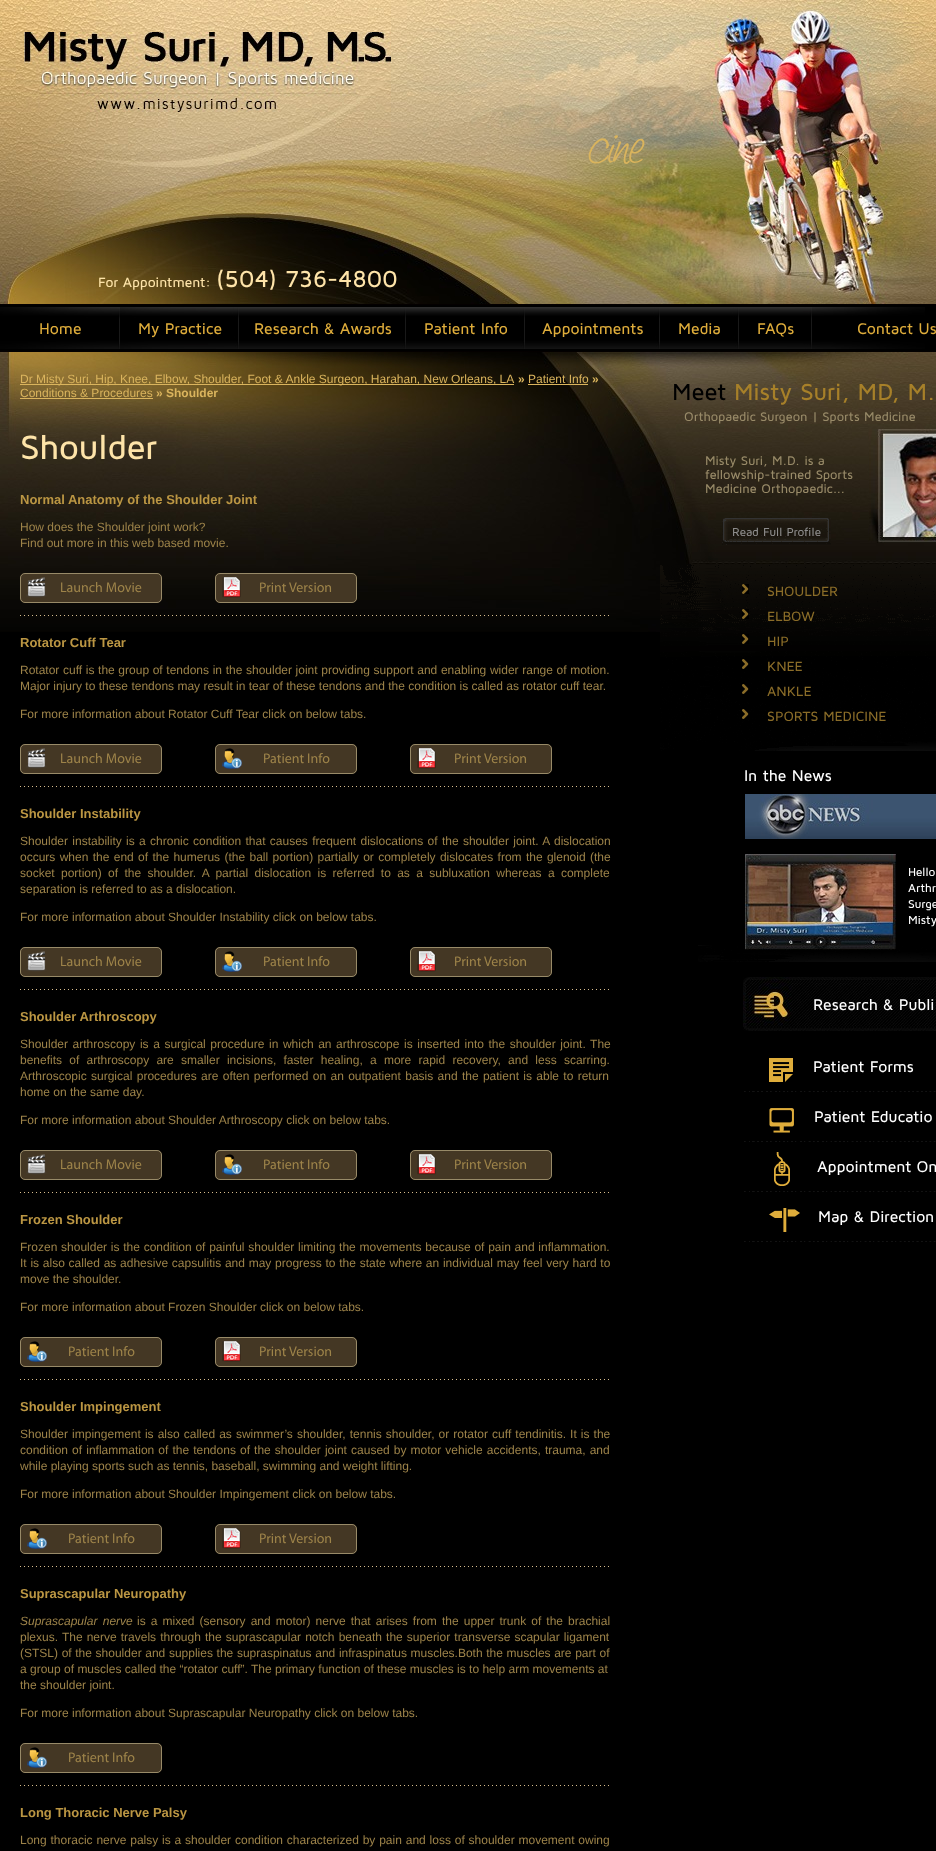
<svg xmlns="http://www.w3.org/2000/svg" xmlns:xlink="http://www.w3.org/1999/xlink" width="936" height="1851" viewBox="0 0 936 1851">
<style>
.cls-1{font:500 45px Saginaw;fill:#dab45d}
.cls-2{font:500 14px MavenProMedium;fill:#fee4a9}
.cls-3{font:500 24px MavenProMedium;fill:#fee4a9}
.cls-4{font:500 16px MavenProMedium;fill:#dfad3b}
.cls-5{font:12px Liberation Sans;fill:#dab45d}
.cls-6{font:bold 12px Liberation Sans;fill:#dab45d}
.cls-7{font:500 35px MavenProMedium;fill:#fee4a9}
.cls-8{font:bold 13px Liberation Sans;fill:#bb9643}
.cls-9{font:12px Liberation Sans;fill:#9d8349}
.cls-10{font:14px Myriad;fill:#9d8349}
.cls-11{font:italic 12px Liberation Sans;fill:#9d8349}
.cls-12{font:500 24px MavenProMedium;fill:#000000}
.cls-13{font:500 24px MavenProMedium;fill:#a78029}
.cls-14{font:500 13px MavenProMedium;fill:#988a68}
.cls-15{font:500 12px MavenProMedium;fill:#8d8c8c}
.cls-16{font:500 14px MavenProMedium;fill:#8a6c28}
.cls-17{font:500 16px MavenProMedium;fill:#ffffff}
.cls-18{font:500 12px MavenProMedium;fill:#ffffff}
</style>
<rect width="100%" height="100%" fill="#000000"/>
<image xlink:href="image0.png" x="0" y="304" width="936" height="48"/>
<image xlink:href="image1.png" x="0" y="0" width="391" height="304"/>
<image xlink:href="image2.png" x="24" y="32" width="367" height="80"/>
<image xlink:href="image3.png" x="391" y="0" width="545" height="304"/>
<image xlink:href="image4.png" x="0" y="307" width="120" height="42"/>
<image xlink:href="image5.png" x="120" y="307" width="119" height="42"/>
<image xlink:href="image6.png" x="239" y="307" width="167" height="42"/>
<image xlink:href="image7.png" x="406" y="307" width="119" height="42"/>
<image xlink:href="image8.png" x="525" y="307" width="135" height="42"/>
<image xlink:href="image9.png" x="660" y="307" width="79" height="42"/>
<image xlink:href="image10.png" x="739" y="307" width="73" height="42"/>
<image xlink:href="image11.png" x="812" y="307" width="113" height="42"/>
<image xlink:href="image12.png" x="0" y="352" width="660" height="280"/>
<rect fill="#dab45d" x="20" y="384" width="494" height="1"/>
<rect fill="#dab45d" x="528" y="384" width="60" height="1"/>
<rect fill="#dab45d" x="20" y="398" width="133" height="1"/>
<rect fill="#443724" x="20" y="573" width="142" height="30" rx="5"/>
<image xlink:href="image13.png" x="26" y="577" width="21" height="21"/>
<rect fill="none" stroke="#988a68" x="20.5" y="573.5" width="141" height="29" rx="4.5"/>
<rect fill="#443724" x="215" y="573" width="142" height="30" rx="5"/>
<image xlink:href="image14.png" x="222" y="577" width="19" height="21"/>
<rect fill="none" stroke="#988a68" x="215.5" y="573.5" width="141" height="29" rx="4.5"/>
<image xlink:href="image15.png" x="20" y="615" width="589" height="1"/>
<rect fill="#443724" x="20" y="744" width="142" height="30" rx="5"/>
<image xlink:href="image13.png" x="26" y="748" width="21" height="21"/>
<rect fill="none" stroke="#988a68" x="20.5" y="744.5" width="141" height="29" rx="4.5"/>
<rect fill="#443724" x="215" y="744" width="142" height="30" rx="5"/>
<image xlink:href="image16.png" x="222" y="748" width="20" height="21"/>
<rect fill="none" stroke="#988a68" x="215.5" y="744.5" width="141" height="29" rx="4.5"/>
<rect fill="#443724" x="410" y="744" width="142" height="30" rx="5"/>
<image xlink:href="image14.png" x="417" y="748" width="19" height="21"/>
<rect fill="none" stroke="#988a68" x="410.5" y="744.5" width="141" height="29" rx="4.5"/>
<image xlink:href="image17.png" x="20" y="786" width="589" height="1"/>
<rect fill="#443724" x="20" y="947" width="142" height="30" rx="5"/>
<image xlink:href="image13.png" x="26" y="951" width="21" height="21"/>
<rect fill="none" stroke="#988a68" x="20.5" y="947.5" width="141" height="29" rx="4.5"/>
<rect fill="#443724" x="215" y="947" width="142" height="30" rx="5"/>
<image xlink:href="image16.png" x="222" y="951" width="20" height="21"/>
<rect fill="none" stroke="#988a68" x="215.5" y="947.5" width="141" height="29" rx="4.5"/>
<rect fill="#443724" x="410" y="947" width="142" height="30" rx="5"/>
<image xlink:href="image14.png" x="417" y="951" width="19" height="21"/>
<rect fill="none" stroke="#988a68" x="410.5" y="947.5" width="141" height="29" rx="4.5"/>
<image xlink:href="image17.png" x="20" y="989" width="589" height="1"/>
<rect fill="#443724" x="20" y="1150" width="142" height="30" rx="5"/>
<image xlink:href="image13.png" x="26" y="1154" width="21" height="21"/>
<rect fill="none" stroke="#988a68" x="20.5" y="1150.5" width="141" height="29" rx="4.5"/>
<rect fill="#443724" x="215" y="1150" width="142" height="30" rx="5"/>
<image xlink:href="image16.png" x="222" y="1154" width="20" height="21"/>
<rect fill="none" stroke="#988a68" x="215.5" y="1150.5" width="141" height="29" rx="4.5"/>
<rect fill="#443724" x="410" y="1150" width="142" height="30" rx="5"/>
<image xlink:href="image14.png" x="417" y="1154" width="19" height="21"/>
<rect fill="none" stroke="#988a68" x="410.5" y="1150.5" width="141" height="29" rx="4.5"/>
<image xlink:href="image17.png" x="20" y="1192" width="589" height="1"/>
<rect fill="#443724" x="20" y="1337" width="142" height="30" rx="5"/>
<image xlink:href="image16.png" x="27" y="1341" width="20" height="21"/>
<rect fill="none" stroke="#988a68" x="20.5" y="1337.5" width="141" height="29" rx="4.5"/>
<rect fill="#443724" x="215" y="1337" width="142" height="30" rx="5"/>
<image xlink:href="image14.png" x="222" y="1341" width="19" height="21"/>
<rect fill="none" stroke="#988a68" x="215.5" y="1337.5" width="141" height="29" rx="4.5"/>
<image xlink:href="image17.png" x="20" y="1379" width="589" height="1"/>
<rect fill="#443724" x="20" y="1524" width="142" height="30" rx="5"/>
<image xlink:href="image16.png" x="27" y="1528" width="20" height="21"/>
<rect fill="none" stroke="#988a68" x="20.5" y="1524.5" width="141" height="29" rx="4.5"/>
<rect fill="#443724" x="215" y="1524" width="142" height="30" rx="5"/>
<image xlink:href="image14.png" x="222" y="1528" width="19" height="21"/>
<rect fill="none" stroke="#988a68" x="215.5" y="1524.5" width="141" height="29" rx="4.5"/>
<image xlink:href="image17.png" x="20" y="1566" width="589" height="1"/>
<rect fill="#443724" x="20" y="1743" width="142" height="30" rx="5"/>
<image xlink:href="image16.png" x="27" y="1747" width="20" height="21"/>
<rect fill="none" stroke="#988a68" x="20.5" y="1743.5" width="141" height="29" rx="4.5"/>
<image xlink:href="image17.png" x="20" y="1785" width="589" height="1"/>
<image xlink:href="image18.png" x="660" y="352" width="276" height="212"/>
<image xlink:href="image19.png" x="869" y="429" width="67" height="114"/>
<image xlink:href="image20.png" x="722" y="518" width="109" height="27"/>
<image xlink:href="image21.png" x="660" y="564" width="276" height="187"/>
<image xlink:href="image22.png" x="742" y="584" width="7" height="10"/>
<image xlink:href="image22.png" x="742" y="609" width="7" height="10"/>
<image xlink:href="image22.png" x="742" y="634" width="7" height="10"/>
<image xlink:href="image22.png" x="742" y="659" width="7" height="10"/>
<image xlink:href="image22.png" x="742" y="684" width="7" height="10"/>
<image xlink:href="image22.png" x="742" y="709" width="7" height="10"/>
<image xlink:href="image23.png" x="698" y="945" width="238" height="17"/>
<image xlink:href="image24.png" x="745" y="794" width="191" height="45"/>
<image xlink:href="image25.png" x="745" y="854" width="151" height="96"/>
<image xlink:href="image26.png" x="743" y="977" width="193" height="54"/>
<image xlink:href="image27.png" x="744" y="1091" width="192" height="1"/>
<image xlink:href="image28.png" x="769" y="1058" width="24" height="24"/>
<image xlink:href="image27.png" x="744" y="1141" width="192" height="1"/>
<image xlink:href="image29.png" x="769" y="1108" width="25" height="25"/>
<image xlink:href="image27.png" x="744" y="1191" width="192" height="1"/>
<image xlink:href="image30.png" x="774" y="1152" width="16" height="34"/>
<image xlink:href="image27.png" x="744" y="1241" width="192" height="1"/>
<image xlink:href="image31.png" x="769" y="1208" width="31" height="24"/>
<text class="cls-1" x="588" y="162">cine</text>
<text class="cls-2" x="98" y="287">For Appointment:</text>
<text class="cls-3" x="216" y="287">(504) 736-4800</text>
<text class="cls-4" x="39" y="334">Home</text>
<text class="cls-4" x="138" y="334">My Practice</text>
<text class="cls-4" x="254" y="334">Research &amp; Awards</text>
<text class="cls-4" x="424" y="334">Patient Info</text>
<text class="cls-4" x="542" y="334">Appointments</text>
<text class="cls-4" x="678" y="334">Media</text>
<text class="cls-4" x="757" y="334">FAQs</text>
<text class="cls-4" x="857" y="334">Contact Us</text>
<text class="cls-5" x="20" y="383">Dr Misty Suri, Hip, Knee, Elbow, Shoulder, Foot &amp; Ankle Surgeon, Harahan, New Orleans, LA</text>
<text class="cls-6" x="518" y="383">»</text>
<text class="cls-5" x="528" y="383">Patient Info</text>
<text class="cls-6" x="592" y="383">»</text>
<text class="cls-5" x="20" y="397">Conditions &amp; Procedures</text>
<text class="cls-6" x="156" y="397">» Shoulder</text>
<text class="cls-7" x="20" y="459">Shoulder</text>
<text class="cls-8" x="20" y="504">Normal Anatomy of the Shoulder Joint</text>
<text class="cls-9"><tspan x="20" y="531">How does the Shoulder joint work?</tspan><tspan x="20" y="547">Find out more in this web based movie.</tspan></text>
<text class="cls-10" x="60" y="592">Launch Movie</text>
<text class="cls-10" x="259" y="592">Print Version</text>
<text class="cls-8" x="20" y="647">Rotator Cuff Tear</text>
<text class="cls-9"><tspan x="20" y="674" word-spacing="0.3">Rotator cuff is the group of tendons in the shoulder joint providing support and enabling wider range of motion.</tspan><tspan x="20" y="690">Major injury to these tendons may result in tear of these tendons and the condition is called as rotator cuff tear.</tspan></text>
<text class="cls-9" x="20" y="718">For more information about Rotator Cuff Tear click on below tabs.</text>
<text class="cls-10" x="60" y="763">Launch Movie</text>
<text class="cls-10" x="263" y="763">Patient Info</text>
<text class="cls-10" x="454" y="763">Print Version</text>
<text class="cls-8" x="20" y="818">Shoulder Instability</text>
<text class="cls-9"><tspan x="20" y="845" word-spacing="1">Shoulder instability is a chronic condition that causes frequent dislocations of the shoulder joint. A dislocation</tspan><tspan x="20" y="861" word-spacing="1">occurs when the end of the humerus (the ball portion) partially or completely dislocates from the glenoid (the</tspan><tspan x="20" y="877" word-spacing="3">socket portion) of the shoulder. A partial dislocation is referred to as a subluxation whereas a complete</tspan><tspan x="20" y="893">separation is referred to as a dislocation.</tspan></text>
<text class="cls-9" x="20" y="921">For more information about Shoulder Instability click on below tabs.</text>
<text class="cls-10" x="60" y="966">Launch Movie</text>
<text class="cls-10" x="263" y="966">Patient Info</text>
<text class="cls-10" x="454" y="966">Print Version</text>
<text class="cls-8" x="20" y="1021">Shoulder Arthroscopy</text>
<text class="cls-9"><tspan x="20" y="1048" word-spacing="1.25">Shoulder arthroscopy is a surgical procedure in which an arthroscope is inserted into the shoulder joint. The</tspan><tspan x="20" y="1064" word-spacing="3.9">benefits of arthroscopy are smaller incisions, faster healing, a more rapid recovery, and less scarring.</tspan><tspan x="20" y="1080" word-spacing="1">Arthroscopic surgical procedures are often performed on an outpatient basis and the patient is able to return</tspan><tspan x="20" y="1096">home on the same day.</tspan></text>
<text class="cls-9" x="20" y="1124">For more information about Shoulder Arthroscopy click on below tabs.</text>
<text class="cls-10" x="60" y="1169">Launch Movie</text>
<text class="cls-10" x="263" y="1169">Patient Info</text>
<text class="cls-10" x="454" y="1169">Print Version</text>
<text class="cls-8" x="20" y="1224">Frozen Shoulder</text>
<text class="cls-9"><tspan x="20" y="1251" word-spacing="0.4">Frozen shoulder is the condition of painful shoulder limiting the movements because of pain and inflammation.</tspan><tspan x="20" y="1267" word-spacing="0.4">It is also called as adhesive capsulitis and may progress to the state where an individual may feel very hard to</tspan><tspan x="20" y="1283">move the shoulder.</tspan></text>
<text class="cls-9" x="20" y="1311">For more information about Frozen Shoulder click on below tabs.</text>
<text class="cls-10" x="68" y="1356">Patient Info</text>
<text class="cls-10" x="259" y="1356">Print Version</text>
<text class="cls-8" x="20" y="1411">Shoulder Impingement</text>
<text class="cls-9"><tspan x="20" y="1438" word-spacing="0.75">Shoulder impingement is also called as swimmer’s shoulder, tennis shoulder, or rotator cuff tendinitis. It is the</tspan><tspan x="20" y="1454" word-spacing="0.75">condition of inflammation of the tendons of the shoulder joint caused by motor vehicle accidents, trauma, and</tspan><tspan x="20" y="1470">while playing sports such as tennis, baseball, swimming and weight lifting.</tspan></text>
<text class="cls-9" x="20" y="1498">For more information about Shoulder Impingement click on below tabs.</text>
<text class="cls-10" x="68" y="1543">Patient Info</text>
<text class="cls-10" x="259" y="1543">Print Version</text>
<text class="cls-8" x="20" y="1598">Suprascapular Neuropathy</text>
<text class="cls-11" x="20" y="1625" word-spacing="2">Suprascapular nerve</text>
<text class="cls-9" x="137" y="1625" word-spacing="1.75">is a mixed (sensory and motor) nerve that arises from the upper trunk of the brachial</text>
<text class="cls-9"><tspan x="20" y="1641" word-spacing="0.75">plexus. The nerve travels through the suprascapular notch beneath the superior transverse scapular ligament</tspan><tspan x="20" y="1657" word-spacing="0.3">(STSL) of the shoulder and supplies the supraspinatus and infraspinatus muscles.Both the muscles are part of</tspan><tspan x="20" y="1673">a group of muscles called the “rotator cuff”. The primary function of these muscles is to help arm movements at</tspan><tspan x="20" y="1689">the shoulder joint.</tspan></text>
<text class="cls-9" x="20" y="1717">For more information about Suprascapular Neuropathy click on below tabs.</text>
<text class="cls-10" x="68" y="1762">Patient Info</text>
<text class="cls-8" x="20" y="1817">Long Thoracic Nerve Palsy</text>
<text class="cls-9" x="20" y="1844" word-spacing="0.5">Long thoracic nerve palsy is a shoulder condition characterized by pain and loss of shoulder movement owing</text>
<text class="cls-12" x="672" y="400">Meet</text>
<text class="cls-13" x="734" y="400">Misty Suri, MD, M.</text>
<text class="cls-14" x="684" y="421">Orthopaedic Surgeon | Sports Medicine</text>
<text class="cls-14"><tspan x="705" y="465">Misty Suri, M.D. is a</tspan><tspan x="705" y="479">fellowship-trained Sports</tspan><tspan x="705" y="493">Medicine Orthopaedic...</tspan></text>
<text class="cls-15" x="732" y="536">Read Full Profile</text>
<text class="cls-16"><tspan x="767" y="596">SHOULDER</tspan><tspan x="767" y="621">ELBOW</tspan><tspan x="767" y="646">HIP</tspan><tspan x="767" y="671">KNEE</tspan><tspan x="767" y="696">ANKLE</tspan><tspan x="767" y="721">SPORTS MEDICINE</tspan></text>
<text class="cls-17" x="744" y="781">In the News</text>
<text class="cls-18"><tspan x="908" y="876">Hello</tspan><tspan x="908" y="892">Arthr</tspan><tspan x="908" y="908">Surge</tspan><tspan x="908" y="924">Misty</tspan></text>
<text class="cls-17" x="813" y="1010">Research &amp; Publi</text>
<text class="cls-17" x="813" y="1072">Patient Forms</text>
<text class="cls-17" x="814" y="1122">Patient Educatio</text>
<text class="cls-17" x="817" y="1172">Appointment On</text>
<text class="cls-17" x="818" y="1222">Map &amp; Direction</text>
</svg>
